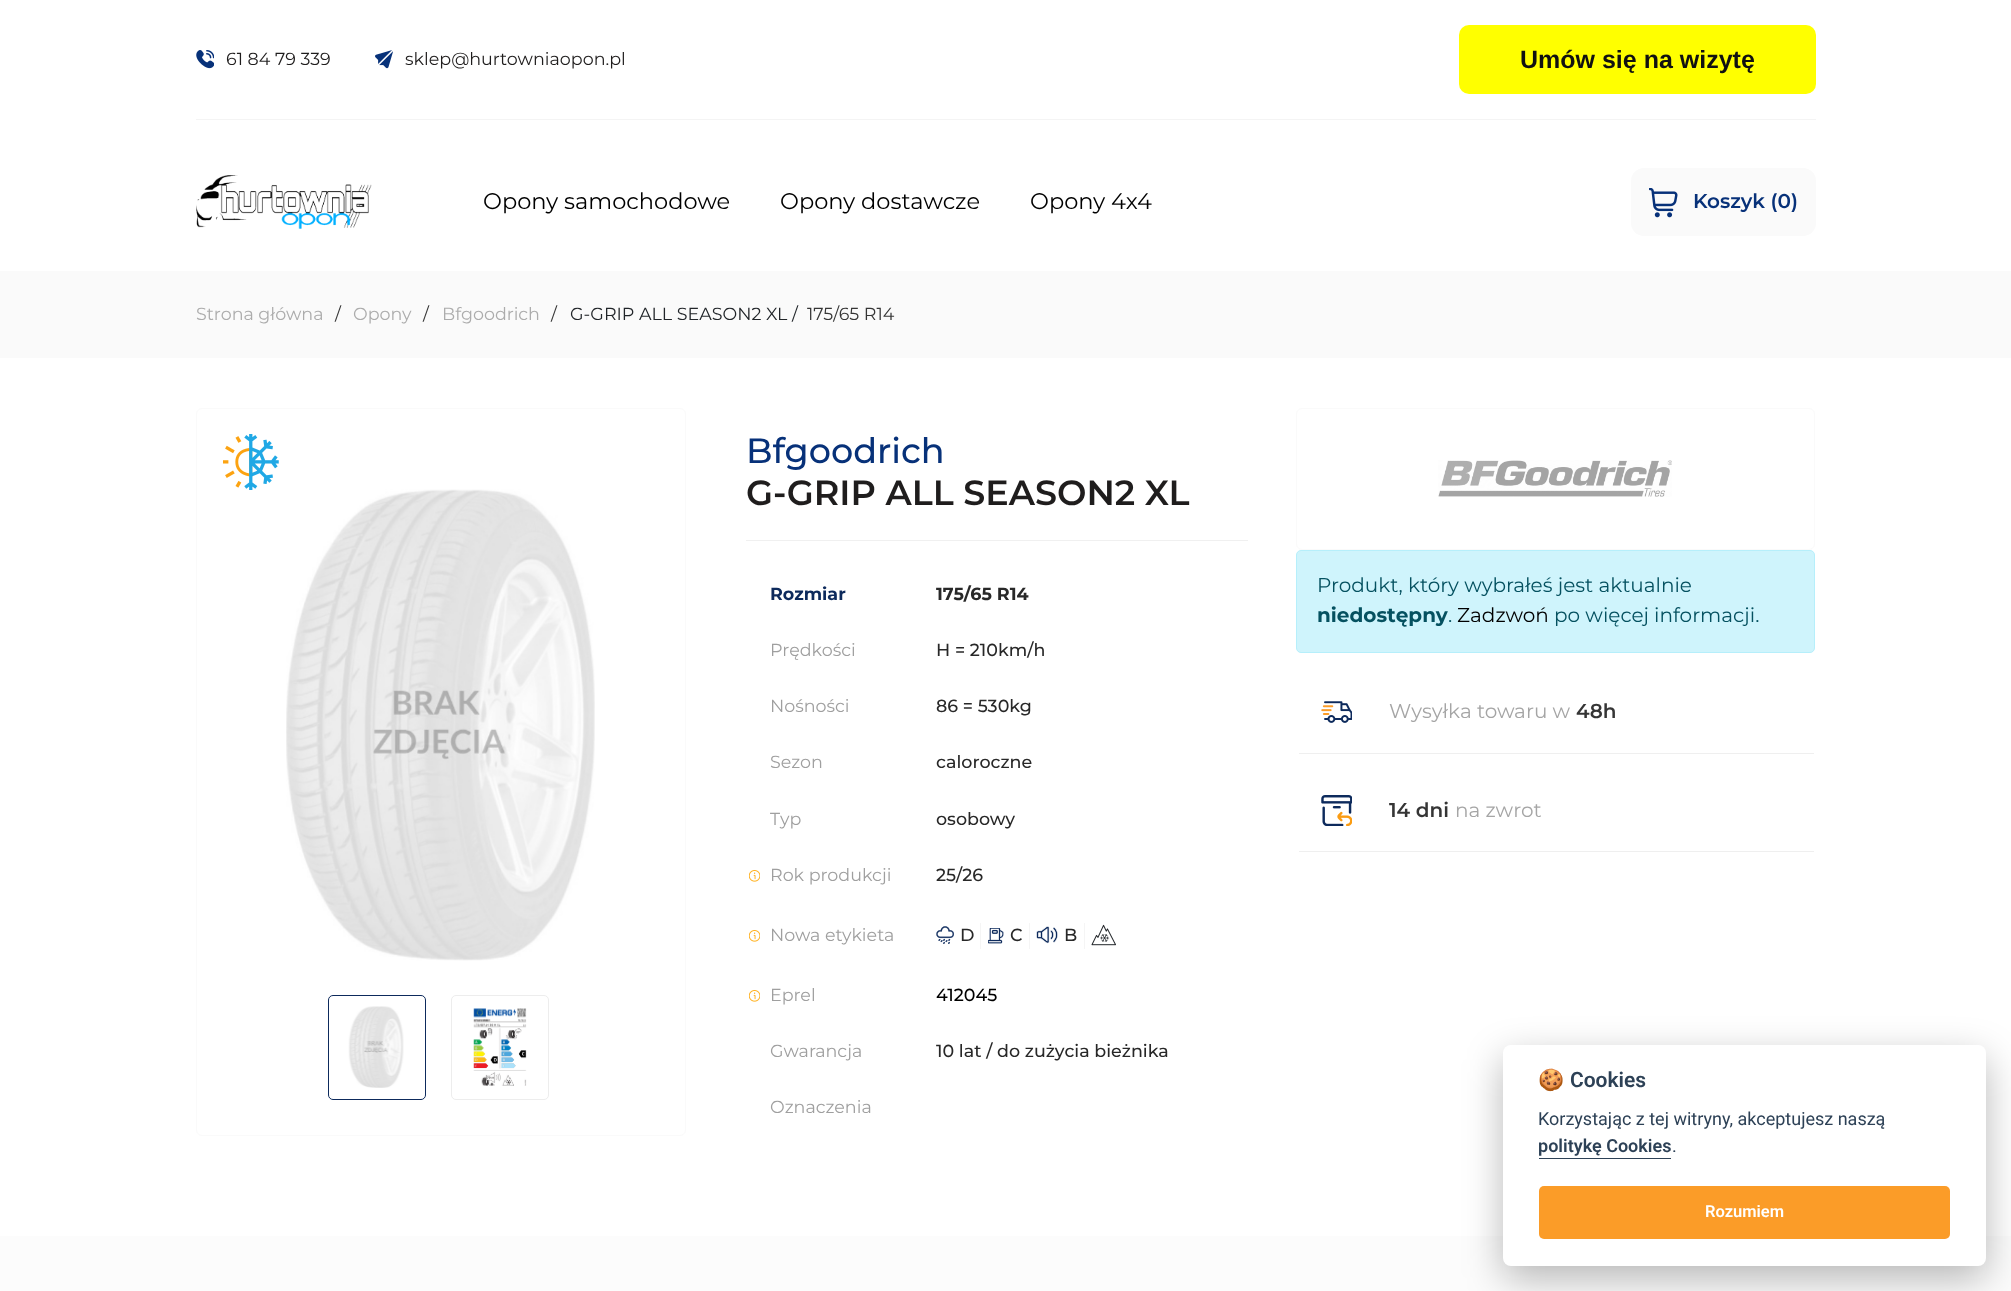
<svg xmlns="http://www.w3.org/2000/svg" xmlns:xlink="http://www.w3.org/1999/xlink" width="2011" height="1291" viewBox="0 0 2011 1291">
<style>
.cls-1{font:17.5px Montserrat;fill:#1f1d1d}
.cls-2{font:bold 25px Liberation Sans;fill:#111111}
.cls-3{font:22.5px Montserrat;fill:#000000}
.cls-4{font:600 20px Montserrat;fill:#073179}
.cls-5{font:17.5px Montserrat;fill:#acacac}
.cls-6{font:17.5px Montserrat;fill:#353535}
.cls-7{font:17.5px Montserrat;fill:#212529}
.cls-8{font:500 35px Montserrat;fill:#073179}
.cls-9{font:600 35px Montserrat;fill:#1f1d1d}
.cls-10{font:bold 17.5px Montserrat;fill:#0d2a5c}
.cls-11{font:bold 17.5px Montserrat;fill:#282828}
.cls-12{font:17.5px Montserrat;fill:#9f9f9f}
.cls-13{font:500 17.5px Montserrat;fill:#282828}
.cls-14{font:500 17.5px Montserrat;fill:#000000}
.cls-15{font:20px Montserrat;fill:#055160}
.cls-16{font:bold 20px Montserrat;fill:#055160}
.cls-17{font:20px Montserrat;fill:#000000}
.cls-18{font:20px Montserrat;fill:#a5a5a5}
.cls-19{font:600 20px Montserrat;fill:#353535}
.cls-20{font:bold 21px Noto Color Emoji;fill:#2d4156}
.cls-21{font:600 21px Roboto;fill:#2d4156}
.cls-22{font:18px Roboto;fill:#2d4156}
.cls-23{font:600 18px Roboto;fill:#2d4156}
.cls-24{font:600 16.5px Roboto;fill:#ffffff}
</style>
<rect width="100%" height="100%" fill="#ffffff"/>
<rect fill="#f4f4f4" x="196" y="119" width="1620" height="1"/>
<image xlink:href="image0.png" x="196" y="50" width="18" height="19"/>
<image xlink:href="image1.png" x="375" y="50" width="18" height="19"/>
<rect fill="#ffff00" x="1459" y="25" width="357" height="69" rx="10"/>
<image xlink:href="image2.png" x="196" y="175" width="176" height="54"/>
<rect fill="#fafafa" x="1631" y="168" width="185" height="68" rx="13"/>
<image xlink:href="image3.png" x="1649" y="188" width="29" height="30"/>
<rect fill="#fafafa" x="0" y="271" width="2011" height="87"/>
<rect fill="none" stroke="#fafafa" x="196.5" y="408.5" width="489" height="727" rx="5.5"/>
<image xlink:href="image4.png" x="223" y="434" width="56" height="56"/>
<image xlink:href="image5.png" x="286" y="489" width="309" height="472"/>
<rect fill="none" stroke="#0d2a5c" x="328.5" y="995.5" width="97" height="104" rx="4.5"/>
<image xlink:href="image6.png" x="348" y="1006" width="56" height="82"/>
<rect fill="none" stroke="#ededed" x="451.5" y="995.5" width="97" height="104" rx="4.5"/>
<image xlink:href="image7.png" x="473" y="1008" width="54" height="78"/>
<rect fill="#f0f0f0" x="746" y="540" width="502" height="1"/>
<image xlink:href="image8.png" x="749" y="870" width="11" height="12"/>
<image xlink:href="image8.png" x="749" y="930" width="11" height="12"/>
<rect fill="#f5f5f5" x="980" y="923" width="1" height="26"/>
<image xlink:href="image9.png" x="936" y="926" width="18" height="18"/>
<rect fill="#f5f5f5" x="1029" y="923" width="1" height="26"/>
<image xlink:href="image10.png" x="988" y="928" width="16" height="16"/>
<rect fill="#f5f5f5" x="1084" y="923" width="1" height="26"/>
<image xlink:href="image11.png" x="1036" y="926" width="22" height="18"/>
<image xlink:href="image12.png" x="1091" y="924" width="25" height="22"/>
<image xlink:href="image8.png" x="749" y="990" width="11" height="12"/>
<rect fill="none" stroke="#fafafa" x="1296.5" y="408.5" width="518" height="141" rx="5.5"/>
<image xlink:href="image13.png" x="1438" y="460" width="234" height="37"/>
<rect fill="#cff4fc" stroke="#b6effb" x="1296.5" y="550.5" width="518" height="102" rx="4.5"/>
<rect fill="#efefef" x="1299" y="753" width="515" height="1"/>
<image xlink:href="image14.png" x="1321" y="701" width="31" height="22"/>
<rect fill="#efefef" x="1299" y="851" width="515" height="1"/>
<image xlink:href="image15.png" x="1321" y="795" width="31" height="31"/>
<rect fill="#fcfcfc" x="0" y="1236" width="2011" height="55"/>
<rect fill="#020203" fill-opacity="0.28" filter="blur(19px)" x="1503" y="1058" width="483" height="221" rx="8"/>
<rect fill="#ffffff" x="1503" y="1045" width="483" height="221" rx="8"/>
<rect fill="#2d4156" x="1539" y="1158" width="132" height="1"/>
<rect fill="#fb9c28" x="1539" y="1186" width="411" height="53" rx="5"/>
<text class="cls-1" x="226" y="65">61 84 79 339</text>
<text class="cls-1" x="405" y="65">sklep@hurtowniaopon.pl</text>
<text class="cls-2" x="1520" y="68">Umów się na wizytę</text>
<text class="cls-3" x="483" y="209">Opony samochodowe</text>
<text class="cls-3" x="780" y="209">Opony dostawcze</text>
<text class="cls-3" x="1030" y="209">Opony 4x4</text>
<text class="cls-4" x="1693" y="208">Koszyk (0)</text>
<text class="cls-5" x="196" y="320">Strona główna</text>
<text class="cls-6" x="335" y="320">/</text>
<text class="cls-5" x="353" y="320">Opony</text>
<text class="cls-6" x="423" y="320">/</text>
<text class="cls-5" x="442" y="320">Bfgoodrich</text>
<text class="cls-6" x="551" y="320">/</text>
<text class="cls-7" x="570" y="320">G-GRIP ALL SEASON2 XL /</text>
<text class="cls-6" x="807" y="320">175/65 R14</text>
<text class="cls-8" x="746" y="463">Bfgoodrich</text>
<text class="cls-9" x="746" y="505">G-GRIP ALL SEASON2 XL</text>
<text class="cls-10" x="770" y="600">Rozmiar</text>
<text class="cls-11" x="936" y="600">175/65 R14</text>
<text class="cls-12" x="770" y="656">Prędkości</text>
<text class="cls-13" x="936" y="656">H = 210km/h</text>
<text class="cls-12" x="770" y="712">Nośności</text>
<text class="cls-13" x="936" y="712">86 = 530kg</text>
<text class="cls-12" x="770" y="768">Sezon</text>
<text class="cls-13" x="936" y="768">caloroczne</text>
<text class="cls-12" x="770" y="825">Typ</text>
<text class="cls-13" x="936" y="825">osobowy</text>
<text class="cls-12" x="770" y="881">Rok produkcji</text>
<text class="cls-13" x="936" y="881">25/26</text>
<text class="cls-12" x="770" y="941">Nowa etykieta</text>
<text class="cls-13" x="960" y="941">D</text>
<text class="cls-13" x="1010" y="941">C</text>
<text class="cls-13" x="1064" y="941">B</text>
<text class="cls-12" x="770" y="1001">Eprel</text>
<text class="cls-14" x="936" y="1001">412045</text>
<text class="cls-12" x="770" y="1057">Gwarancja</text>
<text class="cls-13" x="936" y="1057">10 lat / do zużycia bieżnika</text>
<text class="cls-12" x="770" y="1113">Oznaczenia</text>
<text class="cls-15" x="1317" y="592">Produkt, który wybrałeś jest aktualnie</text>
<text class="cls-16" x="1317" y="622">niedostępny</text>
<text class="cls-15" x="1448" y="622">.</text>
<text class="cls-17" x="1457" y="622">Zadzwoń</text>
<text class="cls-15" x="1554" y="622">po więcej informacji.</text>
<text class="cls-18" x="1389" y="718">Wysyłka towaru w</text>
<text class="cls-19" x="1576" y="718">48h</text>
<text class="cls-19" x="1389" y="817">14 dni</text>
<text class="cls-18" x="1455" y="817">na zwrot</text>
<text class="cls-20" x="1538" y="1087">🍪</text>
<text class="cls-21" x="1570" y="1087">Cookies</text>
<text class="cls-22" x="1538" y="1125">Korzystając z tej witryny, akceptujesz naszą</text>
<text class="cls-23" x="1538" y="1152">politykę Cookies</text>
<text class="cls-22" x="1672" y="1152">.</text>
<text class="cls-24" x="1705" y="1217">Rozumiem</text>
</svg>
